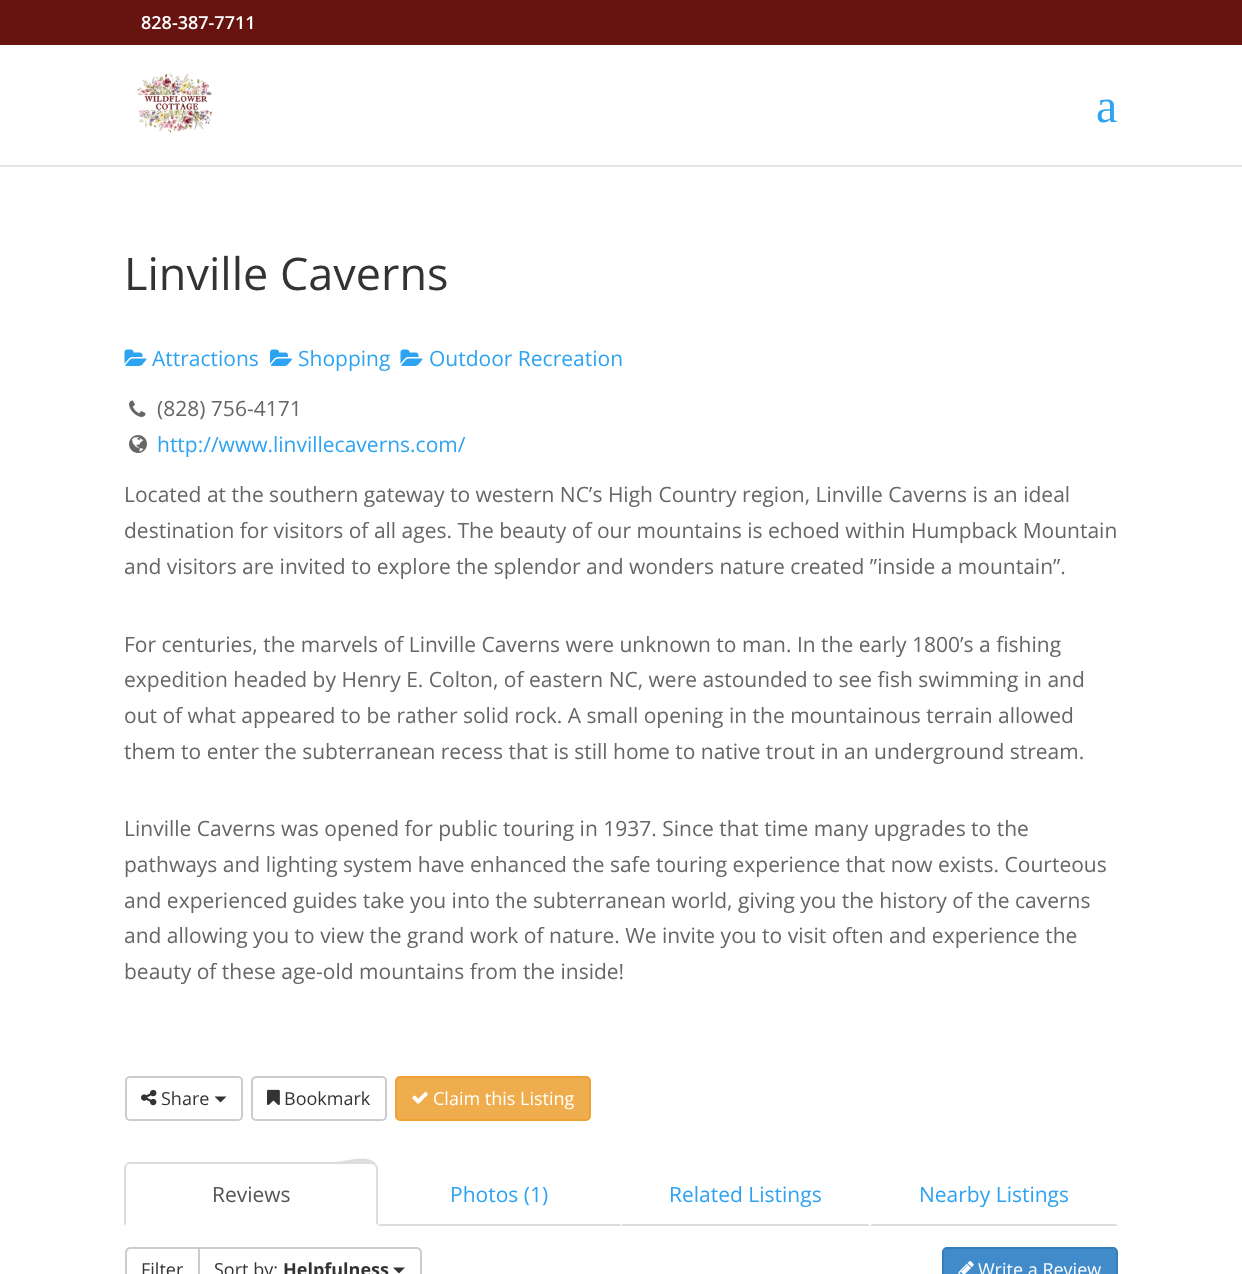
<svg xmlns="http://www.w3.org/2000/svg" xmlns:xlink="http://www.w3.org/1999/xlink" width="1242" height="1274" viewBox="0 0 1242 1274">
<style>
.cls-1{font:600 18px Open Sans;fill:#ffffff}
.cls-2{font:48px Liberation Serif;fill:#2ea3f2}
.cls-3{font:45px Open Sans;fill:#333333}
.cls-4{font:21px Open Sans;fill:#2ea3f2}
.cls-5{font:21px Open Sans;fill:#666666}
.cls-6{font:18px Open Sans;fill:#333333}
.cls-7{font:18px Open Sans;fill:#ffffff}
.cls-8{font:21px Open Sans;fill:#555555}
.cls-9{font:bold 18px Open Sans;fill:#333333}
</style>
<rect width="100%" height="100%" fill="#ffffff"/>
<rect fill="#671410" x="0" y="0" width="1242" height="45"/>
<rect fill="#e6e6e6" x="0" y="165" width="1242" height="2"/>
<image xlink:href="image0.png" x="137" y="73" width="75" height="60"/>
<image xlink:href="image1.png" x="124" y="349" width="23" height="17"/>
<image xlink:href="image2.png" x="270" y="349" width="22" height="17"/>
<image xlink:href="image1.png" x="400" y="349" width="23" height="17"/>
<image xlink:href="image3.png" x="129" y="400" width="17" height="17"/>
<image xlink:href="image4.png" x="129" y="435" width="18" height="18"/>
<rect fill="none" stroke="#cccccc" stroke-width="2" x="126" y="1077" width="116" height="43" rx="4"/>
<image xlink:href="image5.png" x="141" y="1089" width="16" height="17"/>
<path fill="#333333" d="M214.5 1096.5H226.5L220.5 1102.5Z"/>
<rect fill="none" stroke="#cccccc" stroke-width="2" x="252" y="1077" width="134" height="43" rx="4"/>
<image xlink:href="image6.png" x="267" y="1089" width="13" height="16"/>
<rect fill="#f0ad4e" stroke="#eea236" stroke-width="2" x="396" y="1077" width="194" height="43" rx="4"/>
<image xlink:href="image7.png" x="412" y="1092" width="16" height="12"/>
<path fill="#dddddd" d="M130 1164L127 1165L126 1164L128 1162H333C348 1162 367 1153 376 1164L375 1166C374 1165 373 1164 372 1164Z"/>
<path fill="#dddddd" d="M378 1226V1168C378 1167 377 1165 376 1164L375 1166L376 1168V1224Z"/>
<path fill="#ffffff" d="M378 1226L376 1224H126L124 1226Z"/>
<path fill="#dddddd" d="M124 1226V1166L126 1164L127 1165L126 1168V1224Z"/>
<path fill="#dddddd" d="M621 1226H378L380 1224H620Z"/>
<path fill="#dddddd" d="M870 1226H621L622 1224H868Z"/>
<path fill="#dddddd" d="M1118 1226L1116 1224H872L870 1226Z"/>
<path fill="none" stroke="#cccccc" stroke-width="2" d="M130 1248H199V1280H130C128 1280 126 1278 126 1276V1252C126 1250 128 1248 130 1248Z"/>
<path fill="#ffffff" stroke="#cccccc" stroke-width="2" d="M199 1248H417C419 1248 421 1250 421 1252V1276C421 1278 419 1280 417 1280H199Z"/>
<path fill="#333333" d="M393 1267.5H405L399 1273.5Z"/>
<rect fill="#428bca" stroke="#357ebd" stroke-width="2" x="943" y="1248" width="174" height="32" rx="4"/>
<image xlink:href="image8.png" x="958" y="1261" width="16" height="13"/>
<text class="cls-1" x="141" y="29">828-387-7711</text>
<text class="cls-2" x="1096" y="122">a</text>
<text class="cls-3" x="124" y="290">Linville Caverns</text>
<text class="cls-4" x="152" y="366">Attractions</text>
<text class="cls-4" x="298" y="366">Shopping</text>
<text class="cls-4" x="429" y="366">Outdoor Recreation</text>
<text class="cls-5" x="157" y="416">(828) 756-4171</text>
<text class="cls-4" x="157" y="452">http://www.linvillecaverns.com/</text>
<text class="cls-5"><tspan x="124" y="502">Located at the southern gateway to western NC’s High Country region, Linville Caverns is an ideal</tspan><tspan x="124" y="538">destination for visitors of all ages. The beauty of our mountains is echoed within Humpback Mountain</tspan><tspan x="124" y="574">and visitors are invited to explore the splendor and wonders nature created ”inside a mountain”.</tspan></text>
<text class="cls-5"><tspan x="124" y="652">For centuries, the marvels of Linville Caverns were unknown to man. In the early 1800’s a fishing</tspan><tspan x="124" y="687">expedition headed by Henry E. Colton, of eastern NC, were astounded to see fish swimming in and</tspan><tspan x="124" y="723">out of what appeared to be rather solid rock. A small opening in the mountainous terrain allowed</tspan><tspan x="124" y="759">them to enter the subterranean recess that is still home to native trout in an underground stream.</tspan></text>
<text class="cls-5"><tspan x="124" y="836">Linville Caverns was opened for public touring in 1937. Since that time many upgrades to the</tspan><tspan x="124" y="872">pathways and lighting system have enhanced the safe touring experience that now exists. Courteous</tspan><tspan x="124" y="908">and experienced guides take you into the subterranean world, giving you the history of the caverns</tspan><tspan x="124" y="943">and allowing you to view the grand work of nature. We invite you to visit often and experience the</tspan><tspan x="124" y="979">beauty of these age-old mountains from the inside!</tspan></text>
<text class="cls-6" x="161" y="1105">Share</text>
<text class="cls-6" x="284" y="1105">Bookmark</text>
<text class="cls-7" x="433" y="1105">Claim this Listing</text>
<text class="cls-8" x="212" y="1202">Reviews</text>
<text class="cls-4" x="450" y="1202">Photos (1)</text>
<text class="cls-4" x="669" y="1202">Related Listings</text>
<text class="cls-4" x="919" y="1202">Nearby Listings</text>
<text class="cls-6" x="141" y="1276">Filter</text>
<text class="cls-6" x="214" y="1276">Sort by:</text>
<text class="cls-9" x="283" y="1276">Helpfulness</text>
<text class="cls-7" x="978" y="1276">Write a Review</text>
</svg>
